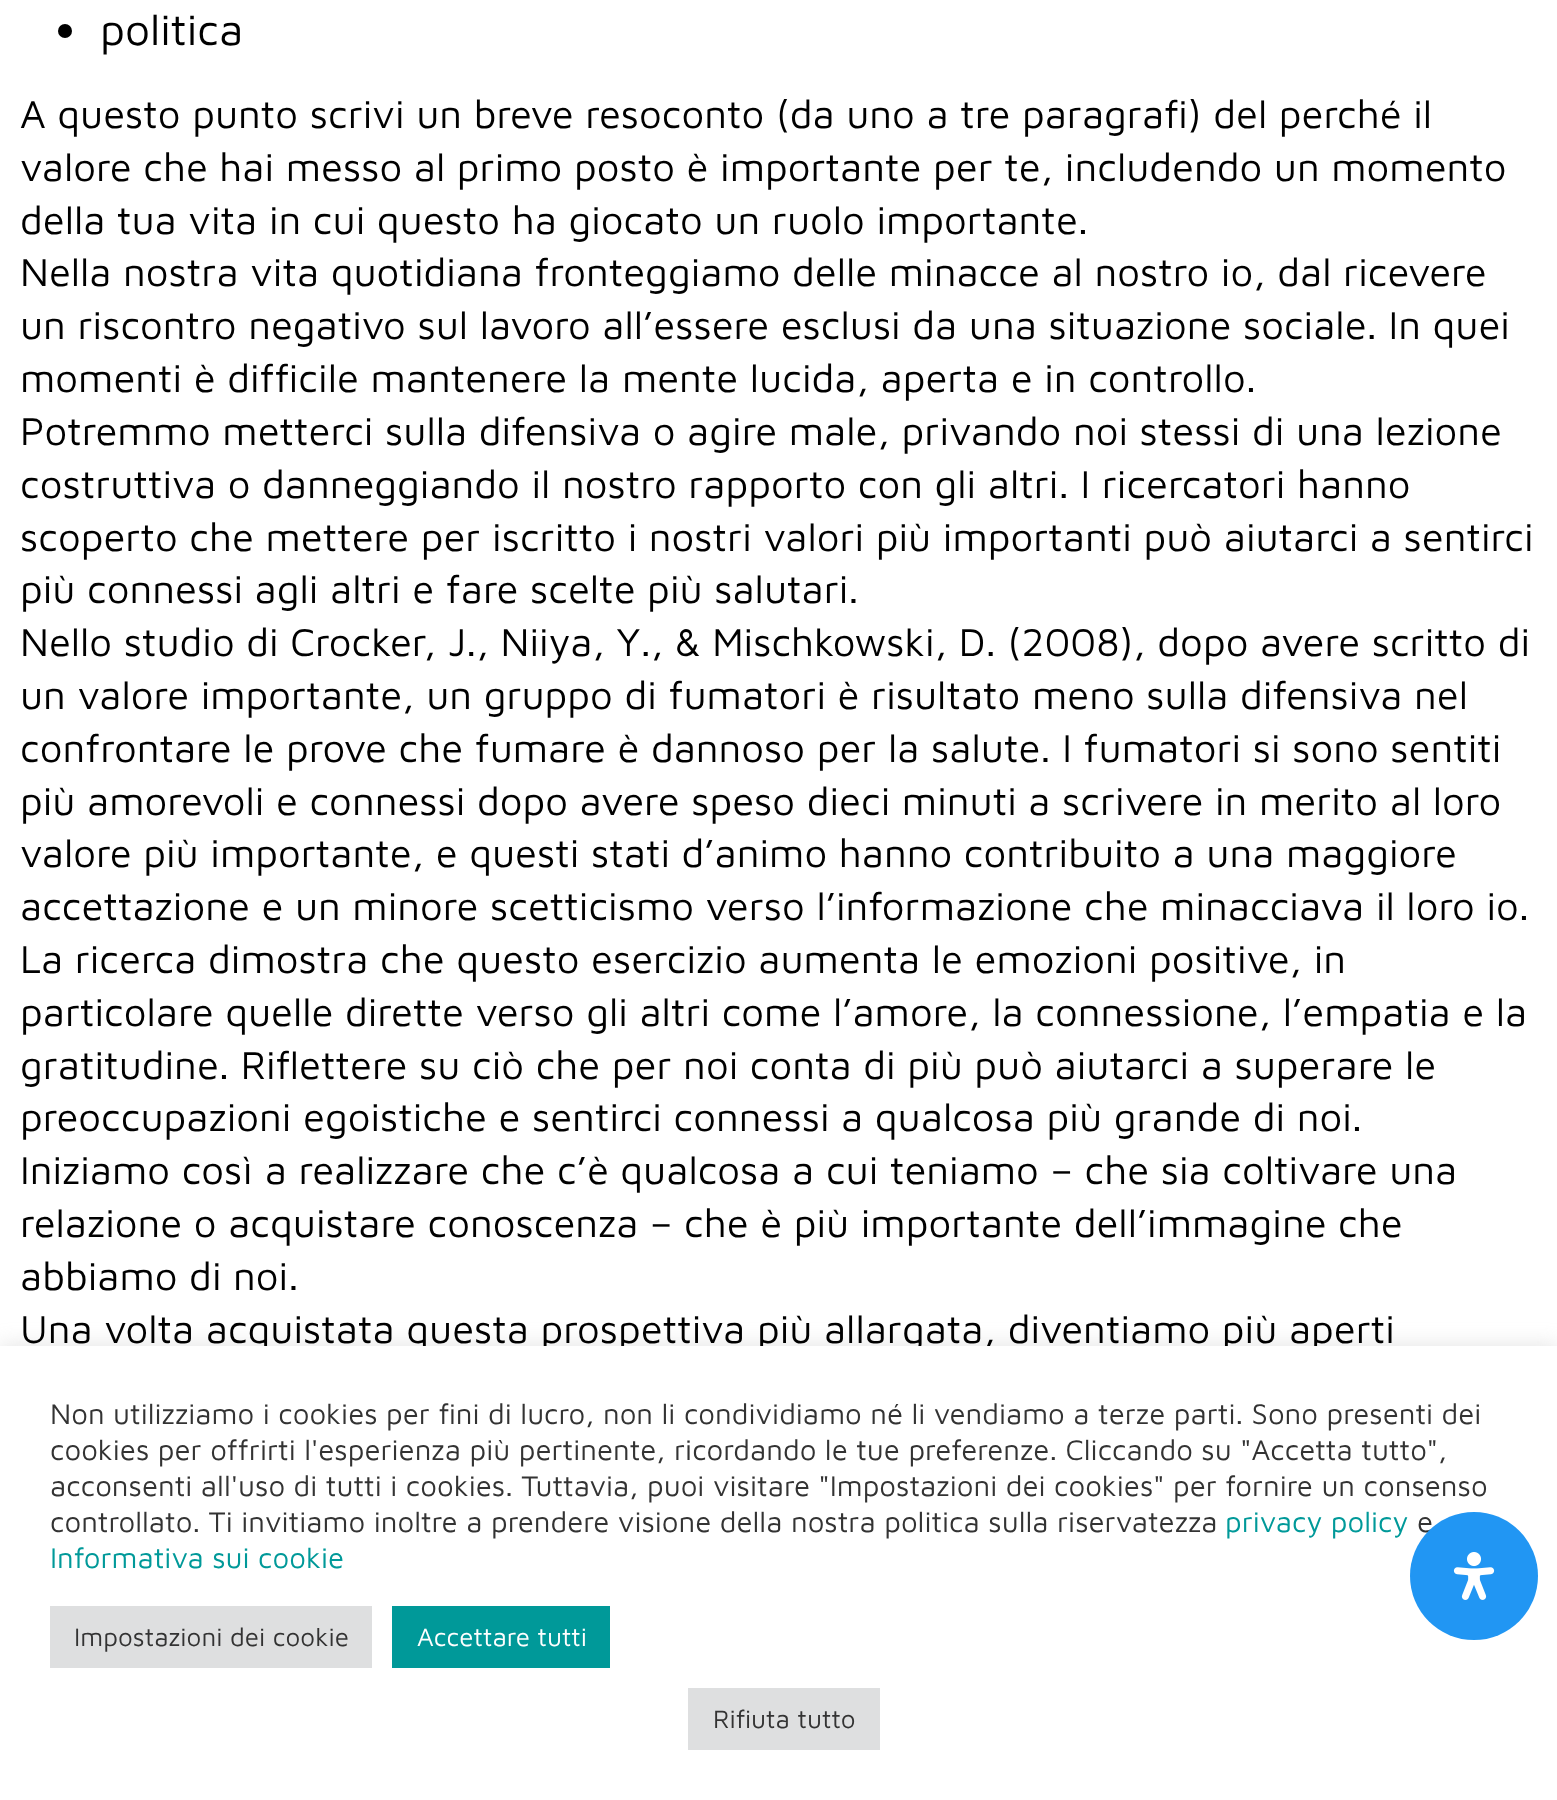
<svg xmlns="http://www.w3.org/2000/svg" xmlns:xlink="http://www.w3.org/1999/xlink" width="1557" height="1800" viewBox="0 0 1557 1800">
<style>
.cls-1{font:44px Maven Pro;fill:#000000}
.cls-2{font:40px Maven Pro;fill:#000000}
.cls-3{font:29.35px Maven Pro;fill:#333333}
.cls-4{font:29.35px Maven Pro;fill:#009999}
.cls-5{font:26px Maven Pro;fill:#333333}
.cls-6{font:26px Maven Pro;fill:#ffffff}
</style>
<rect width="100%" height="100%" fill="#ffffff"/>
<circle fill="#000000" cx="65" cy="31" r="7"/>
<rect fill="#acabab" fill-opacity="0.3" filter="blur(10px)" x="0" y="1344" width="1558" height="454"/>
<text class="cls-1" x="100" y="45">politica</text>
<text class="cls-2"><tspan x="20" y="128">A questo punto scrivi un breve resoconto (da uno a tre paragrafi) del perché il</tspan><tspan x="20" y="181">valore che hai messo al primo posto è importante per te, includendo un momento</tspan><tspan x="20" y="234">della tua vita in cui questo ha giocato un ruolo importante.</tspan><tspan x="20" y="286">Nella nostra vita quotidiana fronteggiamo delle minacce al nostro io, dal ricevere</tspan><tspan x="20" y="339">un riscontro negativo sul lavoro all’essere esclusi da una situazione sociale. In quei</tspan><tspan x="20" y="392">momenti è difficile mantenere la mente lucida, aperta e in controllo.</tspan><tspan x="20" y="445">Potremmo metterci sulla difensiva o agire male, privando noi stessi di una lezione</tspan><tspan x="20" y="498">costruttiva o danneggiando il nostro rapporto con gli altri. I ricercatori hanno</tspan><tspan x="20" y="551">scoperto che mettere per iscritto i nostri valori più importanti può aiutarci a sentirci</tspan><tspan x="20" y="603">più connessi agli altri e fare scelte più salutari.</tspan><tspan x="20" y="656">Nello studio di Crocker, J., Niiya, Y., &amp; Mischkowski, D. (2008), dopo avere scritto di</tspan><tspan x="20" y="709">un valore importante, un gruppo di fumatori è risultato meno sulla difensiva nel</tspan><tspan x="20" y="762">confrontare le prove che fumare è dannoso per la salute. I fumatori si sono sentiti</tspan><tspan x="20" y="815">più amorevoli e connessi dopo avere speso dieci minuti a scrivere in merito al loro</tspan><tspan x="20" y="867">valore più importante, e questi stati d’animo hanno contribuito a una maggiore</tspan><tspan x="20" y="920">accettazione e un minore scetticismo verso l’informazione che minacciava il loro io.</tspan><tspan x="20" y="973">La ricerca dimostra che questo esercizio aumenta le emozioni positive, in</tspan><tspan x="20" y="1026">particolare quelle dirette verso gli altri come l’amore, la connessione, l’empatia e la</tspan><tspan x="20" y="1079">gratitudine. Riflettere su ciò che per noi conta di più può aiutarci a superare le</tspan><tspan x="20" y="1131">preoccupazioni egoistiche e sentirci connessi a qualcosa più grande di noi.</tspan><tspan x="20" y="1184">Iniziamo così a realizzare che c’è qualcosa a cui teniamo – che sia coltivare una</tspan><tspan x="20" y="1237">relazione o acquistare conoscenza – che è più importante dell’immagine che</tspan><tspan x="20" y="1290">abbiamo di noi.</tspan><tspan x="20" y="1343">Una volta acquistata questa prospettiva più allargata, diventiamo più aperti</tspan></text>
<rect fill="#ffffff" x="0" y="1346" width="1557" height="454"/>
<text class="cls-3"><tspan x="50" y="1424">Non utilizziamo i cookies per fini di lucro, non li condividiamo né li vendiamo a terze parti. Sono presenti dei</tspan><tspan x="50" y="1460">cookies per offrirti l'esperienza più pertinente, ricordando le tue preferenze. Cliccando su "Accetta tutto",</tspan><tspan x="50" y="1496">acconsenti all'uso di tutti i cookies. Tuttavia, puoi visitare "Impostazioni dei cookies" per fornire un consenso</tspan><tspan x="50" y="1532">controllato. Ti invitiamo inoltre a prendere visione della nostra politica sulla riservatezza</tspan></text>
<text class="cls-4" x="1225" y="1532">privacy policy</text>
<text class="cls-3" x="1417" y="1532">e</text>
<text class="cls-4" x="50" y="1568">Informativa sui cookie</text>
<rect fill="#dedfe0" x="50" y="1606" width="322" height="62"/>
<text class="cls-5" x="74" y="1646">Impostazioni dei cookie</text>
<rect fill="#009999" x="392" y="1606" width="218" height="62"/>
<text class="cls-6" x="417" y="1646">Accettare tutti</text>
<rect fill="#dedfe0" x="688" y="1688" width="192" height="62"/>
<text class="cls-5" x="713" y="1728">Rifiuta tutto</text>
<circle fill="#2196f3" cx="1474" cy="1576" r="64"/>
<image xlink:href="image0.png" x="1453" y="1552" width="42" height="48"/>
</svg>
